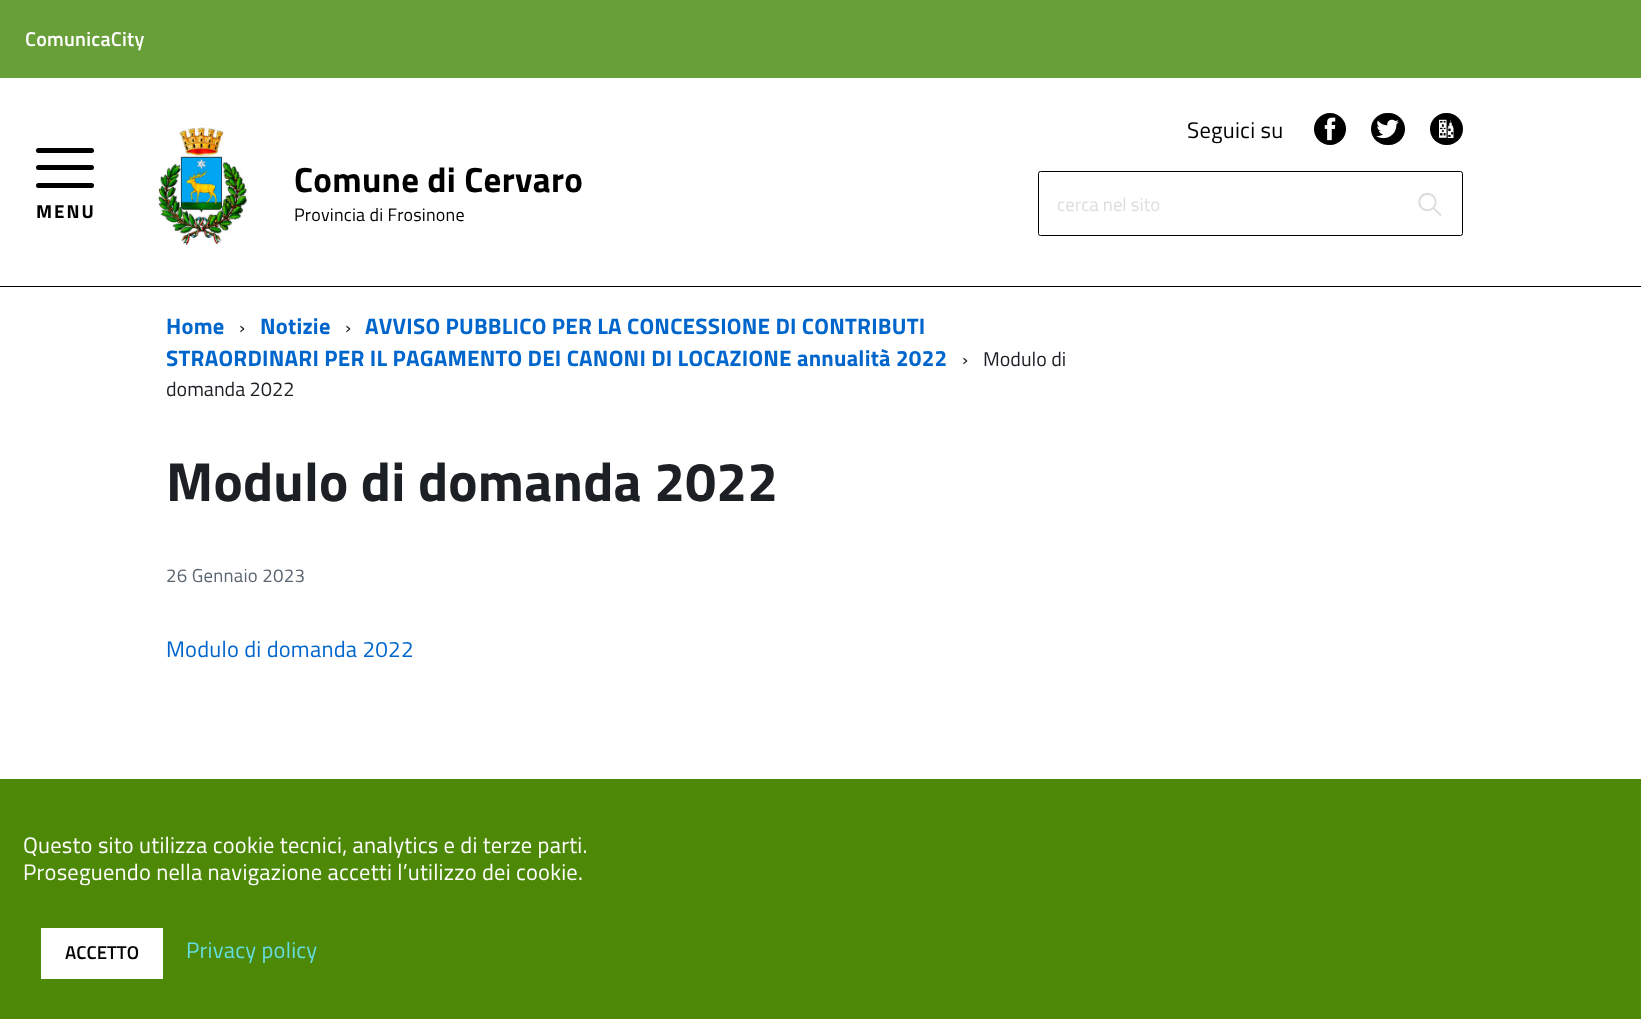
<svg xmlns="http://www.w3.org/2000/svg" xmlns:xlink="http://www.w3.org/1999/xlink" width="1641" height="1019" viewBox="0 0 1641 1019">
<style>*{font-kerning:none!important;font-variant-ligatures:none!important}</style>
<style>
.cls-1{font:600 20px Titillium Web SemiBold;letter-spacing:0.25px;fill:#ffffff}
.cls-2{font:bold 18.75px Titillium Web;letter-spacing:2px;fill:#000000}
.cls-3{font:bold 35px Titillium Web;letter-spacing:0.3px;fill:#000000}
.cls-4{font:18px Titillium Web;letter-spacing:0.2px;fill:#000000}
.cls-5{font:22.5px Titillium Web;letter-spacing:0.22px;fill:#000000}
.cls-6{font:bold 22.5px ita;fill:#dddddd}
.cls-7{font:18.75px Titillium Web;fill:#dddddd}
.cls-8{font:bold 22.5px Titillium Web;letter-spacing:0.22px;fill:#0066cc}
.cls-9{font:20px Titillium Web;fill:#1c2024}
.cls-10{font:bold 55px Titillium Web;letter-spacing:0.22px;fill:#1c2024}
.cls-11{font:18.75px Titillium Web;letter-spacing:0.22px;fill:#5a6772}
.cls-12{font:22.5px Titillium Web;letter-spacing:0.22px;fill:#0066cc}
.cls-13{font:22.5px Titillium Web;letter-spacing:0.22px;fill:#ffffff}
.cls-14{font:600 18.75px Titillium Web SemiBold;fill:#000000}
.cls-15{font:22.5px Titillium Web;letter-spacing:0.22px;fill:#65dcdf}
</style>
<rect width="100%" height="100%" fill="#ffffff"/>
<rect fill="#689f38" x="0" y="0" width="1641" height="78"/>
<rect fill="#000000" x="0" y="286" width="1641" height="1"/>
<rect fill="#000000" x="36" y="165" width="58" height="5" rx="2.5"/>
<rect fill="#000000" x="36" y="148" width="58" height="5" rx="2.5"/>
<rect fill="#000000" x="36" y="183" width="58" height="5" rx="2.5"/>
<image xlink:href="image0.png" x="157" y="127" width="91" height="119"/>
<circle fill="#000000" cx="1330" cy="129" r="16"/>
<image xlink:href="image1.png" x="1324" y="117" width="12" height="24"/>
<rect fill="#000000" x="1371" y="113" width="34" height="32" rx="16"/>
<image xlink:href="image2.png" x="1376" y="119" width="23" height="20"/>
<rect fill="#000000" x="1430" y="113" width="33" height="32" rx="16"/>
<image xlink:href="image3.png" x="1439" y="119" width="15" height="19"/>
<rect fill="none" stroke="#000000" x="1038.5" y="171.5" width="424" height="64" rx="2"/>
<rect fill="#ffffff" x="1039" y="173" width="360" height="62" rx="2.5"/>
<rect fill="#4d8907" x="0" y="779" width="1641" height="240"/>
<rect fill="#ffffff" x="41" y="928" width="122" height="51"/>
<text class="cls-1" x="25" y="46">ComunicaCity</text>
<text class="cls-2" x="36" y="218">MENU</text>
<text class="cls-3" x="294" y="192">Comune di Cervaro</text>
<text class="cls-4" x="294" y="221">Provincia di Frosinone</text>
<text class="cls-5" x="1187" y="138">Seguici su</text>
<text class="cls-6" x="1440" y="216" transform="rotate(-90 1440 216)">🔍</text>
<text class="cls-7" x="1057" y="211">cerca nel sito</text>
<text class="cls-8" x="166" y="334">Home</text>
<text class="cls-9" x="239" y="334">›</text>
<text class="cls-8" x="260" y="334">Notizie</text>
<text class="cls-9" x="345" y="334">›</text>
<text class="cls-8" x="365" y="334">AVVISO PUBBLICO PER LA CONCESSIONE DI CONTRIBUTI</text>
<text class="cls-8" x="166" y="366">STRAORDINARI PER IL PAGAMENTO DEI CANONI DI LOCAZIONE annualità 2022</text>
<text class="cls-9" x="962" y="366">›</text>
<text class="cls-9" x="983" y="366">Modulo di</text>
<text class="cls-9" x="166" y="396">domanda 2022</text>
<text class="cls-10" x="166" y="501">Modulo di domanda 2022</text>
<text class="cls-11" x="166" y="582">26 Gennaio 2023</text>
<text class="cls-12" x="166" y="657">Modulo di domanda 2022</text>
<text class="cls-13"><tspan x="23" y="853">Questo sito utilizza cookie tecnici, analytics e di terze parti.</tspan><tspan x="23" y="880">Proseguendo nella navigazione accetti l’utilizzo dei cookie.</tspan></text>
<text class="cls-14" x="65" y="959">ACCETTO</text>
<text class="cls-15" x="186" y="958">Privacy policy</text>
</svg>
